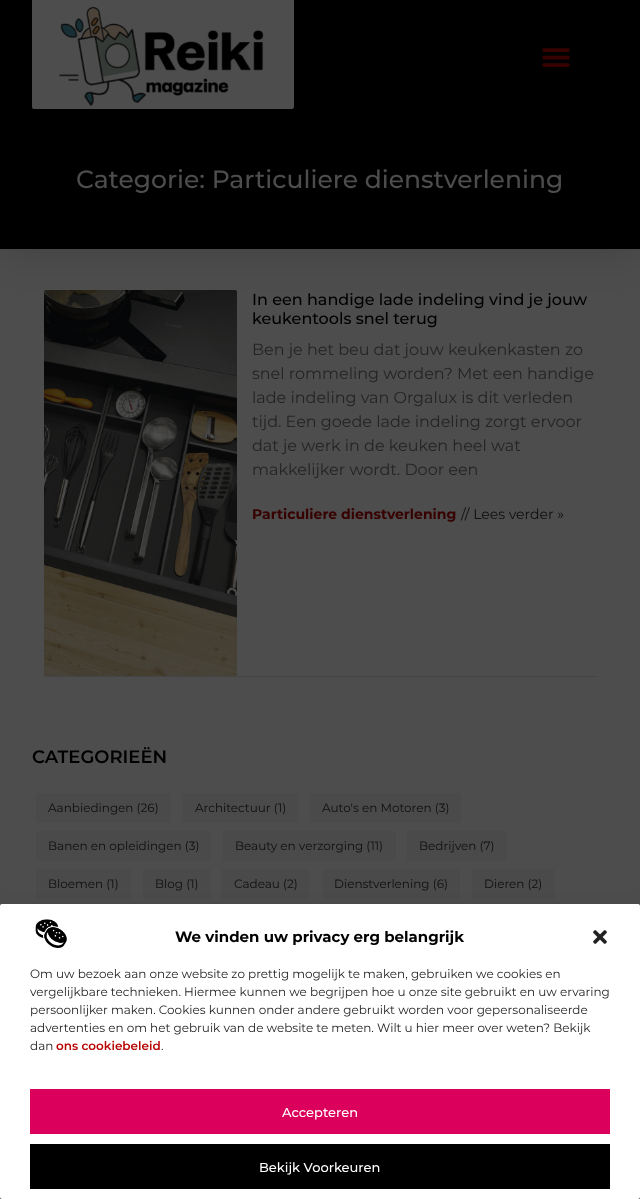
<svg xmlns="http://www.w3.org/2000/svg" xmlns:xlink="http://www.w3.org/1999/xlink" width="640" height="1199" viewBox="0 0 640 1199">
<style>
.cls-1{font:500 25px Montserrat;fill:#4d4d4d}
.cls-2{font:500 16px Montserrat;fill:#000000}
.cls-3{font:16px Montserrat;fill:#242424}
.cls-4{font:bold 14px Montserrat;fill:#370101}
.cls-5{font:14px Montserrat;fill:#0f0f0f}
.cls-6{font:600 18px Montserrat;fill:#000000}
.cls-7{font:12px Montserrat;fill:#0f0f0f}
.cls-8{font:bold 15px Montserrat;fill:#000000}
.cls-9{font:12px Montserrat;fill:#242424}
.cls-10{font:600 12px Montserrat;fill:#b70404}
.cls-11{font:500 13px Montserrat;fill:#ffffff}
</style>
<rect width="100%" height="100%" fill="#4d4d4d"/>
<rect fill="#000000" fill-opacity="0.16" filter="blur(20px)" x="0" y="109" width="640" height="140"/>
<rect fill="#000000" x="0" y="0" width="640" height="249"/>
<path fill="#4d4d4d" d="M32 0H294V107C294 108 293 109 292 109H34C33 109 32 108 32 107Z"/>
<image xlink:href="image0.png" x="59" y="7" width="205" height="99"/>
<image xlink:href="image1.png" x="542" y="48" width="28" height="19"/>
<rect fill="#444444" x="44" y="676" width="552" height="1"/>
<image xlink:href="image2.png" x="44" y="290" width="193" height="386"/>
<rect fill="#4a4a4a" x="36" y="793" width="135" height="30" rx="3"/>
<rect fill="#4a4a4a" x="183" y="793" width="115" height="30" rx="3"/>
<rect fill="#4a4a4a" x="310" y="793" width="151" height="30" rx="3"/>
<rect fill="#4a4a4a" x="36" y="831" width="175" height="30" rx="3"/>
<rect fill="#4a4a4a" x="223" y="831" width="173" height="30" rx="3"/>
<rect fill="#4a4a4a" x="407" y="831" width="100" height="30" rx="3"/>
<rect fill="#4a4a4a" x="36" y="869" width="95" height="30" rx="3"/>
<rect fill="#4a4a4a" x="143" y="869" width="67" height="30" rx="3"/>
<rect fill="#4a4a4a" x="222" y="869" width="88" height="30" rx="3"/>
<rect fill="#4a4a4a" x="322" y="869" width="138" height="30" rx="3"/>
<rect fill="#4a4a4a" x="472" y="869" width="82" height="30" rx="3"/>
<rect fill="#000000" fill-opacity="0.23" filter="blur(3px)" x="0" y="910" width="640" height="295" rx="2"/>
<rect fill="#000000" fill-opacity="0.19" filter="blur(10px)" x="0" y="914" width="640" height="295" rx="2"/>
<rect fill="#ffffff" x="0" y="904" width="640" height="295" rx="2"/>
<image xlink:href="image3.png" x="35" y="919" width="32" height="29"/>
<image xlink:href="image4.png" x="593" y="930" width="14" height="14"/>
<rect fill="#db005b" x="30" y="1089" width="580" height="45"/>
<rect fill="#000000" x="30" y="1144" width="580" height="45"/>
<text class="cls-1" x="76" y="188">Categorie: Particuliere dienstverlening</text>
<text class="cls-2"><tspan x="252" y="305">In een handige lade indeling vind je jouw</tspan><tspan x="252" y="324">keukentools snel terug</tspan></text>
<text class="cls-3"><tspan x="252" y="355">Ben je het beu dat jouw keukenkasten zo</tspan><tspan x="252" y="379">snel rommeling worden? Met een handige</tspan><tspan x="252" y="403">lade indeling van Orgalux is dit verleden</tspan><tspan x="252" y="427">tijd. Een goede lade indeling zorgt ervoor</tspan><tspan x="252" y="451">dat je werk in de keuken heel wat</tspan><tspan x="252" y="475">makkelijker wordt. Door een</tspan></text>
<text class="cls-4" x="252" y="519">Particuliere dienstverlening</text>
<text class="cls-5" x="461" y="519">// Lees verder »</text>
<text class="cls-6" x="32" y="763">CATEGORIEËN</text>
<text class="cls-7" x="48" y="812">Aanbiedingen (26)</text>
<text class="cls-7" x="195" y="812">Architectuur (1)</text>
<text class="cls-7" x="322" y="812">Auto's en Motoren (3)</text>
<text class="cls-7" x="48" y="850">Banen en opleidingen (3)</text>
<text class="cls-7" x="235" y="850">Beauty en verzorging (11)</text>
<text class="cls-7" x="419" y="850">Bedrijven (7)</text>
<text class="cls-7" x="48" y="888">Bloemen (1)</text>
<text class="cls-7" x="155" y="888">Blog (1)</text>
<text class="cls-7" x="234" y="888">Cadeau (2)</text>
<text class="cls-7" x="334" y="888">Dienstverlening (6)</text>
<text class="cls-7" x="484" y="888">Dieren (2)</text>
<text class="cls-8" x="175" y="942">We vinden uw privacy erg belangrijk</text>
<text class="cls-9"><tspan x="30" y="978">Om uw bezoek aan onze website zo prettig mogelijk te maken, gebruiken we cookies en</tspan><tspan x="30" y="996">vergelijkbare technieken. Hiermee kunnen we begrijpen hoe u onze site gebruikt en uw ervaring</tspan><tspan x="30" y="1014">persoonlijker maken. Cookies kunnen onder andere gebruikt worden voor gepersonaliseerde</tspan><tspan x="30" y="1032">advertenties en om het gebruik van de website te meten. Wilt u hier meer over weten? Bekijk</tspan><tspan x="30" y="1050">dan</tspan></text>
<text class="cls-10" x="56" y="1050">ons cookiebeleid</text>
<text class="cls-9" x="161" y="1050">.</text>
<text class="cls-11" x="282" y="1117">Accepteren</text>
<text class="cls-11" x="259" y="1172">Bekijk Voorkeuren</text>
</svg>
